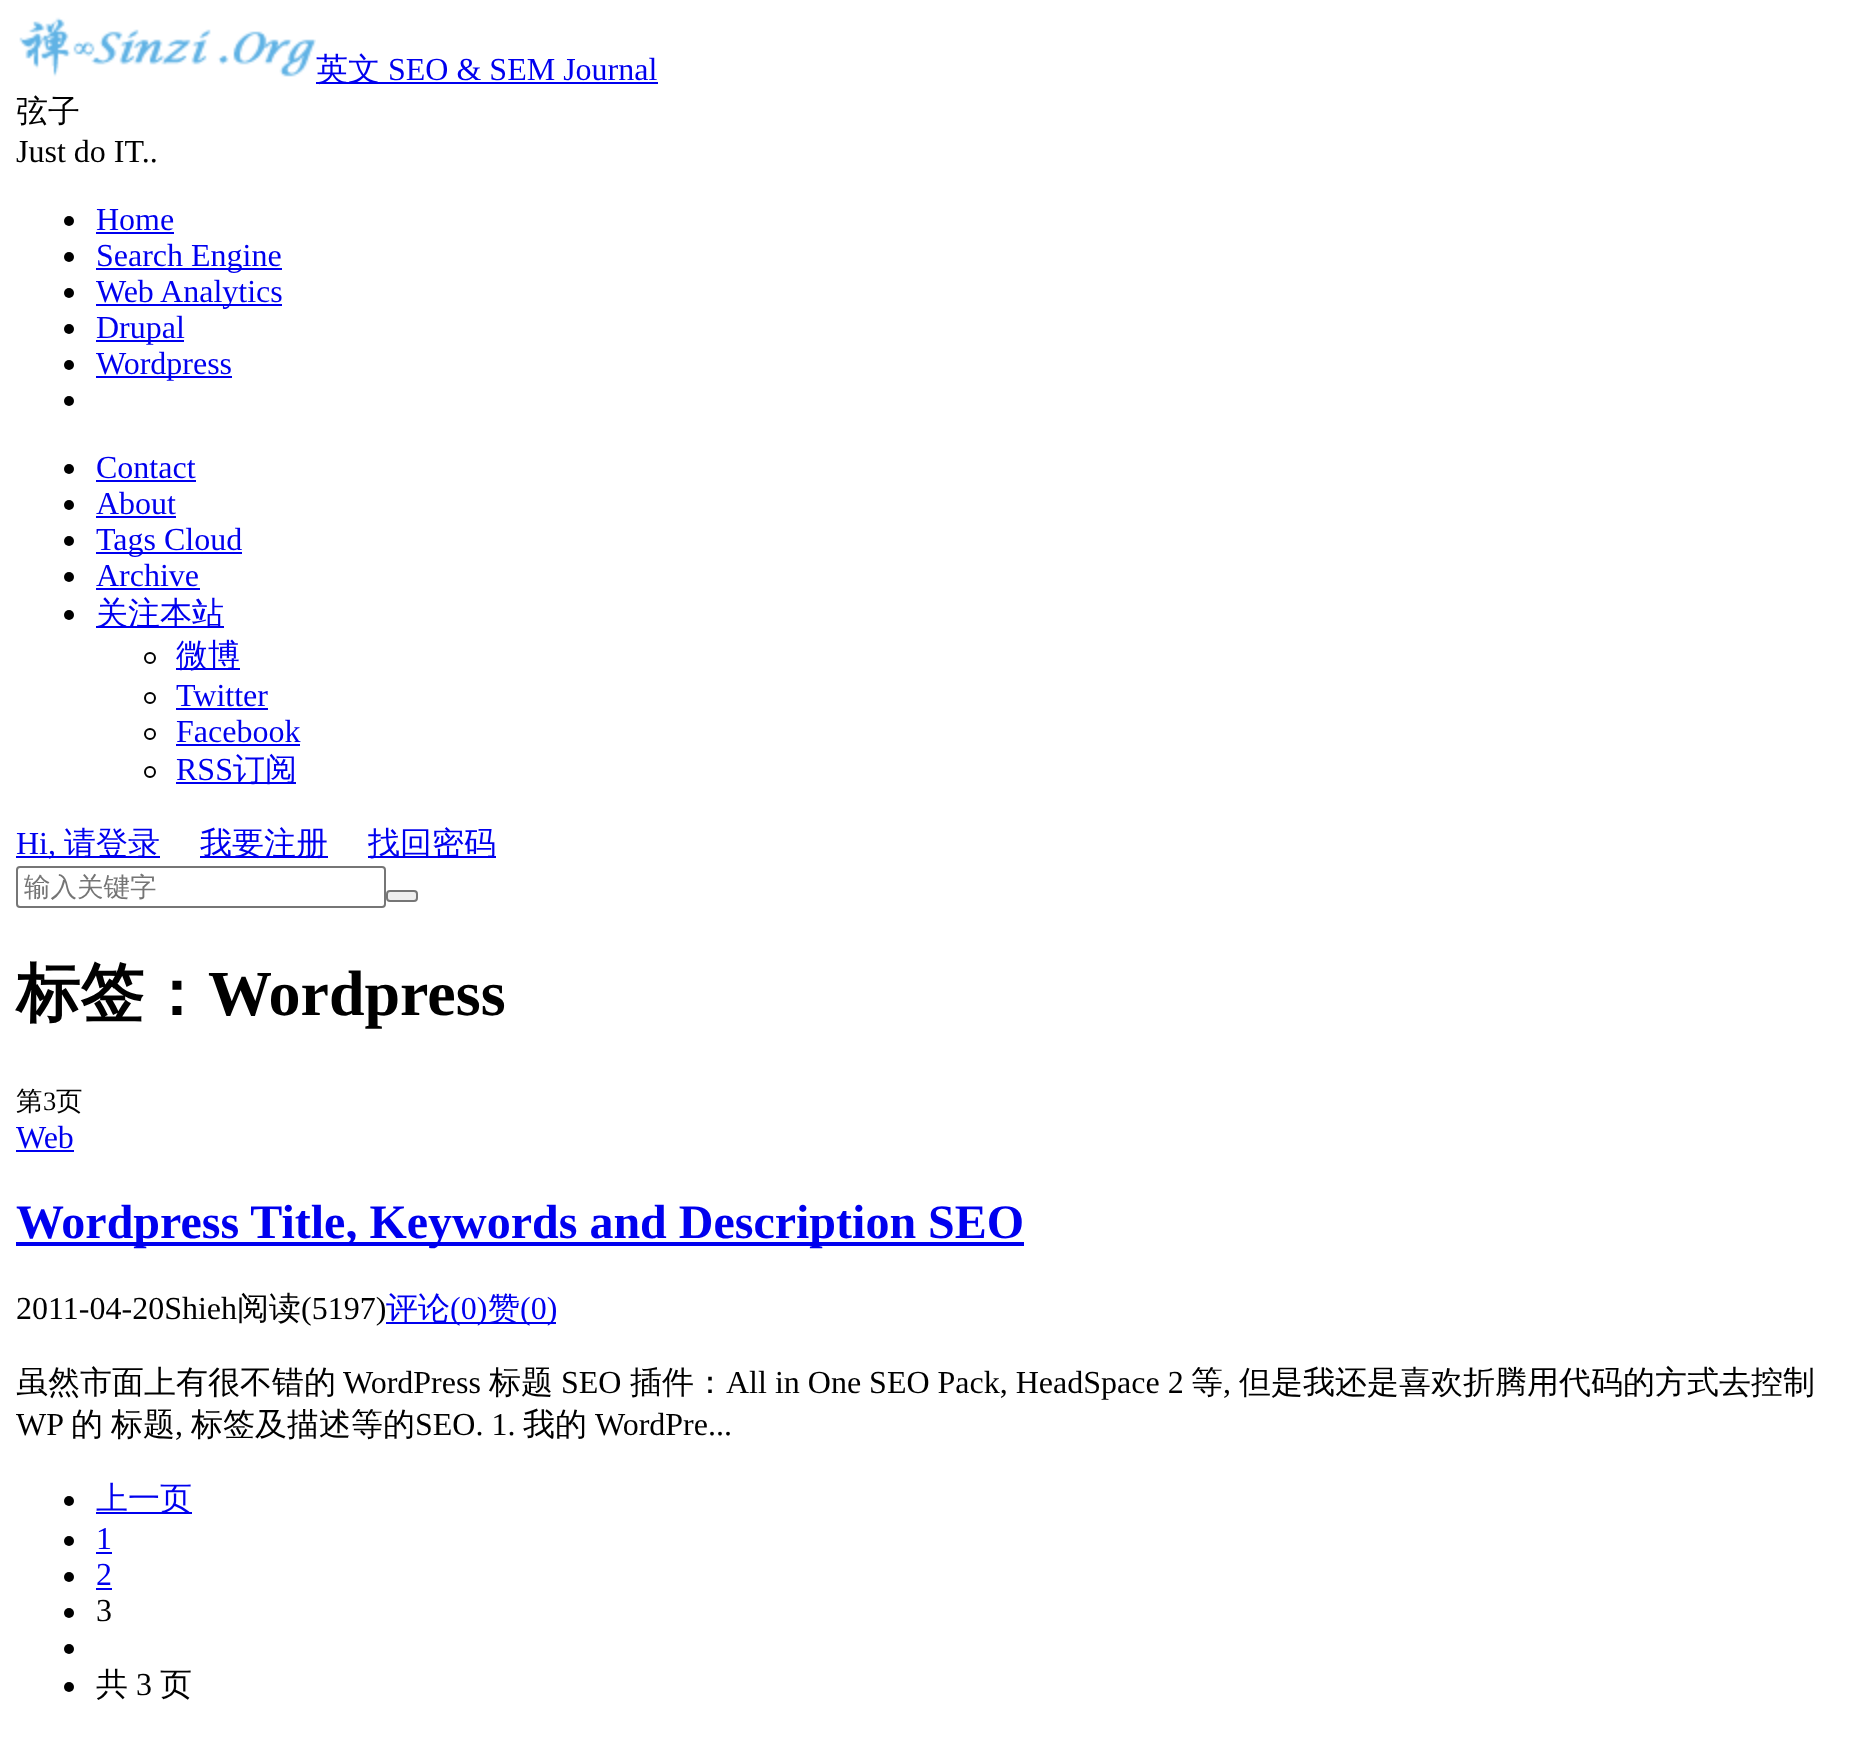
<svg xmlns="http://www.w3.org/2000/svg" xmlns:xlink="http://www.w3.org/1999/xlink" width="1857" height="1760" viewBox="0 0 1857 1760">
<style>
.cls-1{font:500 32px WenQuanYi Zen Hei;fill:#0000ee}
.cls-2{font:32px Liberation Serif;fill:#0000ee}
.cls-3{font:500 32px WenQuanYi Zen Hei;fill:#000000}
.cls-4{font:32px Liberation Serif;fill:#000000}
.cls-5{font:500 26.5px WenQuanYi Zen Hei;fill:#757575}
.cls-6{font:bold 64px WenQuanYi Zen Hei;fill:#000000}
.cls-7{font:bold 64px Liberation Serif;fill:#000000}
.cls-8{font:500 26.5px WenQuanYi Zen Hei;fill:#000000}
.cls-9{font:26.5px Liberation Serif;fill:#000000}
.cls-10{font:bold 48px Liberation Serif;fill:#0000ee}
</style>
<rect width="100%" height="100%" fill="#ffffff"/>
<image xlink:href="image0.png" x="19" y="17" width="297" height="60"/>
<rect fill="#0000ee" x="316" y="82" width="342" height="2"/>
<circle fill="#000000" cx="69" cy="221" r="5"/>
<rect fill="#0000ee" x="96" y="232" width="78" height="2"/>
<circle fill="#000000" cx="69" cy="257" r="5"/>
<rect fill="#0000ee" x="96" y="268" width="186" height="2"/>
<circle fill="#000000" cx="69" cy="293" r="5"/>
<rect fill="#0000ee" x="96" y="304" width="186" height="2"/>
<circle fill="#000000" cx="69" cy="329" r="5"/>
<rect fill="#0000ee" x="96" y="340" width="88" height="2"/>
<circle fill="#000000" cx="69" cy="365" r="5"/>
<rect fill="#0000ee" x="96" y="376" width="136" height="2"/>
<circle fill="#000000" cx="69" cy="401" r="5"/>
<circle fill="#000000" cx="69" cy="469" r="5"/>
<rect fill="#0000ee" x="96" y="480" width="100" height="2"/>
<circle fill="#000000" cx="69" cy="505" r="5"/>
<rect fill="#0000ee" x="96" y="516" width="80" height="2"/>
<circle fill="#000000" cx="69" cy="541" r="5"/>
<rect fill="#0000ee" x="96" y="552" width="146" height="2"/>
<circle fill="#000000" cx="69" cy="577" r="5"/>
<rect fill="#0000ee" x="96" y="588" width="104" height="2"/>
<circle fill="#000000" cx="69" cy="615" r="5"/>
<rect fill="#0000ee" x="96" y="626" width="128" height="2"/>
<circle fill="none" stroke="#000000" stroke-width="2" cx="150" cy="658" r="5"/>
<rect fill="#0000ee" x="176" y="668" width="64" height="2"/>
<circle fill="none" stroke="#000000" stroke-width="2" cx="150" cy="698" r="5"/>
<rect fill="#0000ee" x="176" y="708" width="92" height="2"/>
<circle fill="none" stroke="#000000" stroke-width="2" cx="150" cy="734" r="5"/>
<rect fill="#0000ee" x="176" y="744" width="124" height="2"/>
<circle fill="none" stroke="#000000" stroke-width="2" cx="150" cy="772" r="5"/>
<rect fill="#0000ee" x="176" y="782" width="120" height="2"/>
<rect fill="#0000ee" x="16" y="856" width="144" height="2"/>
<rect fill="#0000ee" x="200" y="856" width="128" height="2"/>
<rect fill="#0000ee" x="368" y="856" width="128" height="2"/>
<rect fill="none" stroke="#767676" stroke-width="2" x="17" y="867" width="368" height="40" rx="3"/>
<rect fill="#efefef" stroke="#767676" stroke-width="2" x="387" y="891" width="30" height="10" rx="3"/>
<rect fill="#0000ee" x="16" y="1150" width="58" height="2"/>
<rect fill="#0000ee" x="16" y="1242" width="1008" height="4"/>
<rect fill="#0000ee" x="386" y="1322" width="170" height="2"/>
<circle fill="#000000" cx="69" cy="1501" r="5"/>
<rect fill="#0000ee" x="96" y="1512" width="96" height="2"/>
<circle fill="#000000" cx="69" cy="1541" r="5"/>
<rect fill="#0000ee" x="96" y="1552" width="16" height="2"/>
<circle fill="#000000" cx="69" cy="1577" r="5"/>
<rect fill="#0000ee" x="96" y="1588" width="16" height="2"/>
<circle fill="#000000" cx="69" cy="1613" r="5"/>
<circle fill="#000000" cx="69" cy="1649" r="5"/>
<circle fill="#000000" cx="69" cy="1687" r="5"/>
<text class="cls-1" x="316" y="80">英文</text>
<text class="cls-2" x="388" y="80">SEO &amp; SEM Journal</text>
<text class="cls-3" x="16" y="122">弦子</text>
<text class="cls-4" x="16" y="162">Just do IT..</text>
<text class="cls-2"><tspan x="96" y="230">Home</tspan><tspan x="96" y="266">Search Engine</tspan><tspan x="96" y="302">Web Analytics</tspan><tspan x="96" y="338">Drupal</tspan><tspan x="96" y="374">Wordpress</tspan></text>
<text class="cls-2"><tspan x="96" y="478">Contact</tspan><tspan x="96" y="514">About</tspan><tspan x="96" y="550">Tags Cloud</tspan><tspan x="96" y="586">Archive</tspan></text>
<text class="cls-1" x="96" y="624">关注本站</text>
<text class="cls-1" x="176" y="666">微博</text>
<text class="cls-2"><tspan x="176" y="706">Twitter</tspan><tspan x="176" y="742">Facebook</tspan><tspan x="176" y="780">RSS</tspan></text>
<text class="cls-1" x="233" y="780">订阅</text>
<text class="cls-2" x="16" y="854">Hi,</text>
<text class="cls-1" x="64" y="854">请登录</text>
<text class="cls-1" x="200" y="854">我要注册</text>
<text class="cls-1" x="368" y="854">找回密码</text>
<text class="cls-5" x="24" y="896">输入关键字</text>
<text class="cls-6" x="16" y="1015">标签：</text>
<text class="cls-7" x="208" y="1015">Wordpress</text>
<text class="cls-8" x="16" y="1110">第</text>
<text class="cls-9" x="43" y="1110">3</text>
<text class="cls-8" x="56" y="1110">页</text>
<text class="cls-2" x="16" y="1148">Web</text>
<text class="cls-10" x="16" y="1238">Wordpress Title, Keywords and Description SEO</text>
<text class="cls-4" x="16" y="1319">2011-04-20Shieh</text>
<text class="cls-3" x="237" y="1319">阅读</text>
<text class="cls-4" x="301" y="1319">(5197)</text>
<text class="cls-1" x="386" y="1319">评论</text>
<text class="cls-2" x="450" y="1319">(0)</text>
<text class="cls-1" x="488" y="1319">赞</text>
<text class="cls-2" x="520" y="1319">(0)</text>
<text class="cls-3" x="16" y="1393">虽然市面上有很不错的</text>
<text class="cls-4" x="343" y="1393">WordPress</text>
<text class="cls-3" x="489" y="1393">标题</text>
<text class="cls-4" x="561" y="1393">SEO</text>
<text class="cls-3" x="630" y="1393">插件：</text>
<text class="cls-4" x="726" y="1393">All in One SEO Pack, HeadSpace 2</text>
<text class="cls-3" x="1191" y="1393">等</text>
<text class="cls-4" x="1223" y="1393">,</text>
<text class="cls-3" x="1239" y="1393">但是我还是喜欢折腾用代码的方式去控制</text>
<text class="cls-4" x="16" y="1435">WP</text>
<text class="cls-3" x="71" y="1435">的</text>
<text class="cls-3" x="111" y="1435">标题</text>
<text class="cls-4" x="175" y="1435">,</text>
<text class="cls-3" x="191" y="1435">标签及描述等的</text>
<text class="cls-4" x="415" y="1435">SEO. 1.</text>
<text class="cls-3" x="523" y="1435">我的</text>
<text class="cls-4" x="595" y="1435">WordPre...</text>
<text class="cls-1" x="96" y="1509">上一页</text>
<text class="cls-2"><tspan x="96" y="1549">1</tspan><tspan x="96" y="1585">2</tspan></text>
<text class="cls-4" x="96" y="1621">3</text>
<text class="cls-3" x="96" y="1695">共</text>
<text class="cls-4" x="136" y="1695">3</text>
<text class="cls-3" x="160" y="1695">页</text>
</svg>
